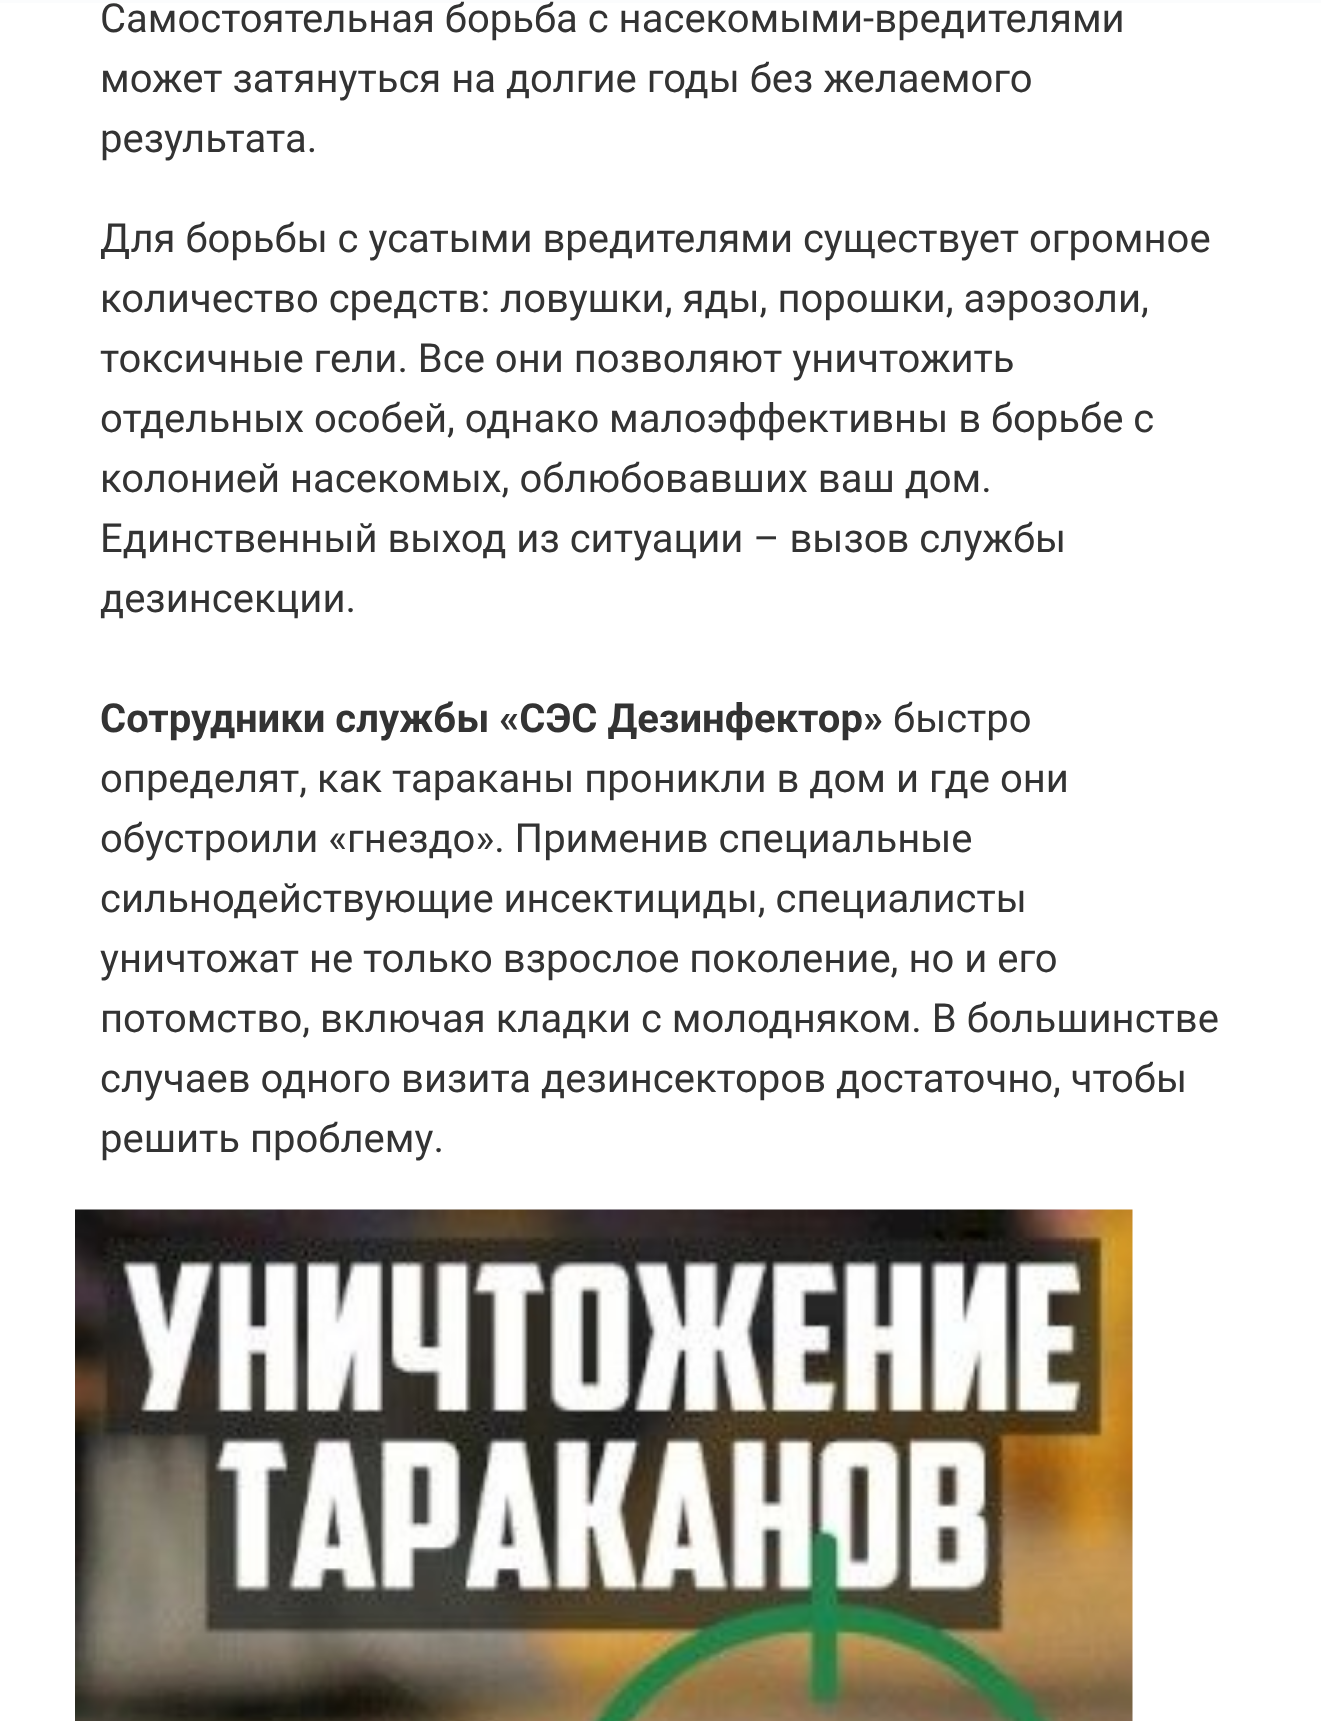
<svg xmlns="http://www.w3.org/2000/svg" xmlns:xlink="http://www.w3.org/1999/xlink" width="1321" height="1721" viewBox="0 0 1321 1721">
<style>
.cls-1{font:40px Roboto;fill:#333333}
.cls-2{font:bold 40px Roboto;fill:#333333}
</style>
<rect width="100%" height="100%" fill="#ffffff"/>
<rect fill="#dfe4ec" fill-opacity="0.13" x="0" y="0" width="1321" height="3"/>
<image xlink:href="image0.png" x="75" y="1209" width="1058" height="512"/>
<text class="cls-1"><tspan x="100" y="32">Самостоятельная борьба с насекомыми-вредителями</tspan><tspan x="100" y="92">может затянуться на долгие годы без желаемого</tspan><tspan x="100" y="152">результата.</tspan></text>
<text class="cls-1"><tspan x="100" y="252">Для борьбы с усатыми вредителями существует огромное</tspan><tspan x="100" y="312">количество средств: ловушки, яды, порошки, аэрозоли,</tspan><tspan x="100" y="372">токсичные гели. Все они позволяют уничтожить</tspan><tspan x="100" y="432">отдельных особей, однако малоэффективны в борьбе с</tspan><tspan x="100" y="492">колонией насекомых, облюбовавших ваш дом.</tspan><tspan x="100" y="552">Единственный выход из ситуации – вызов службы</tspan><tspan x="100" y="612">дезинсекции.</tspan></text>
<text class="cls-2" x="100" y="732">Сотрудники службы «СЭС Дезинфектор»</text>
<text class="cls-1" x="893" y="732">быстро</text>
<text class="cls-1"><tspan x="100" y="792">определят, как тараканы проникли в дом и где они</tspan><tspan x="100" y="852">обустроили «гнездо». Применив специальные</tspan><tspan x="100" y="912">сильнодействующие инсектициды, специалисты</tspan><tspan x="100" y="972">уничтожат не только взрослое поколение, но и его</tspan><tspan x="100" y="1032">потомство, включая кладки с молодняком. В большинстве</tspan><tspan x="100" y="1092">случаев одного визита дезинсекторов достаточно, чтобы</tspan><tspan x="100" y="1152">решить проблему.</tspan></text>
</svg>
